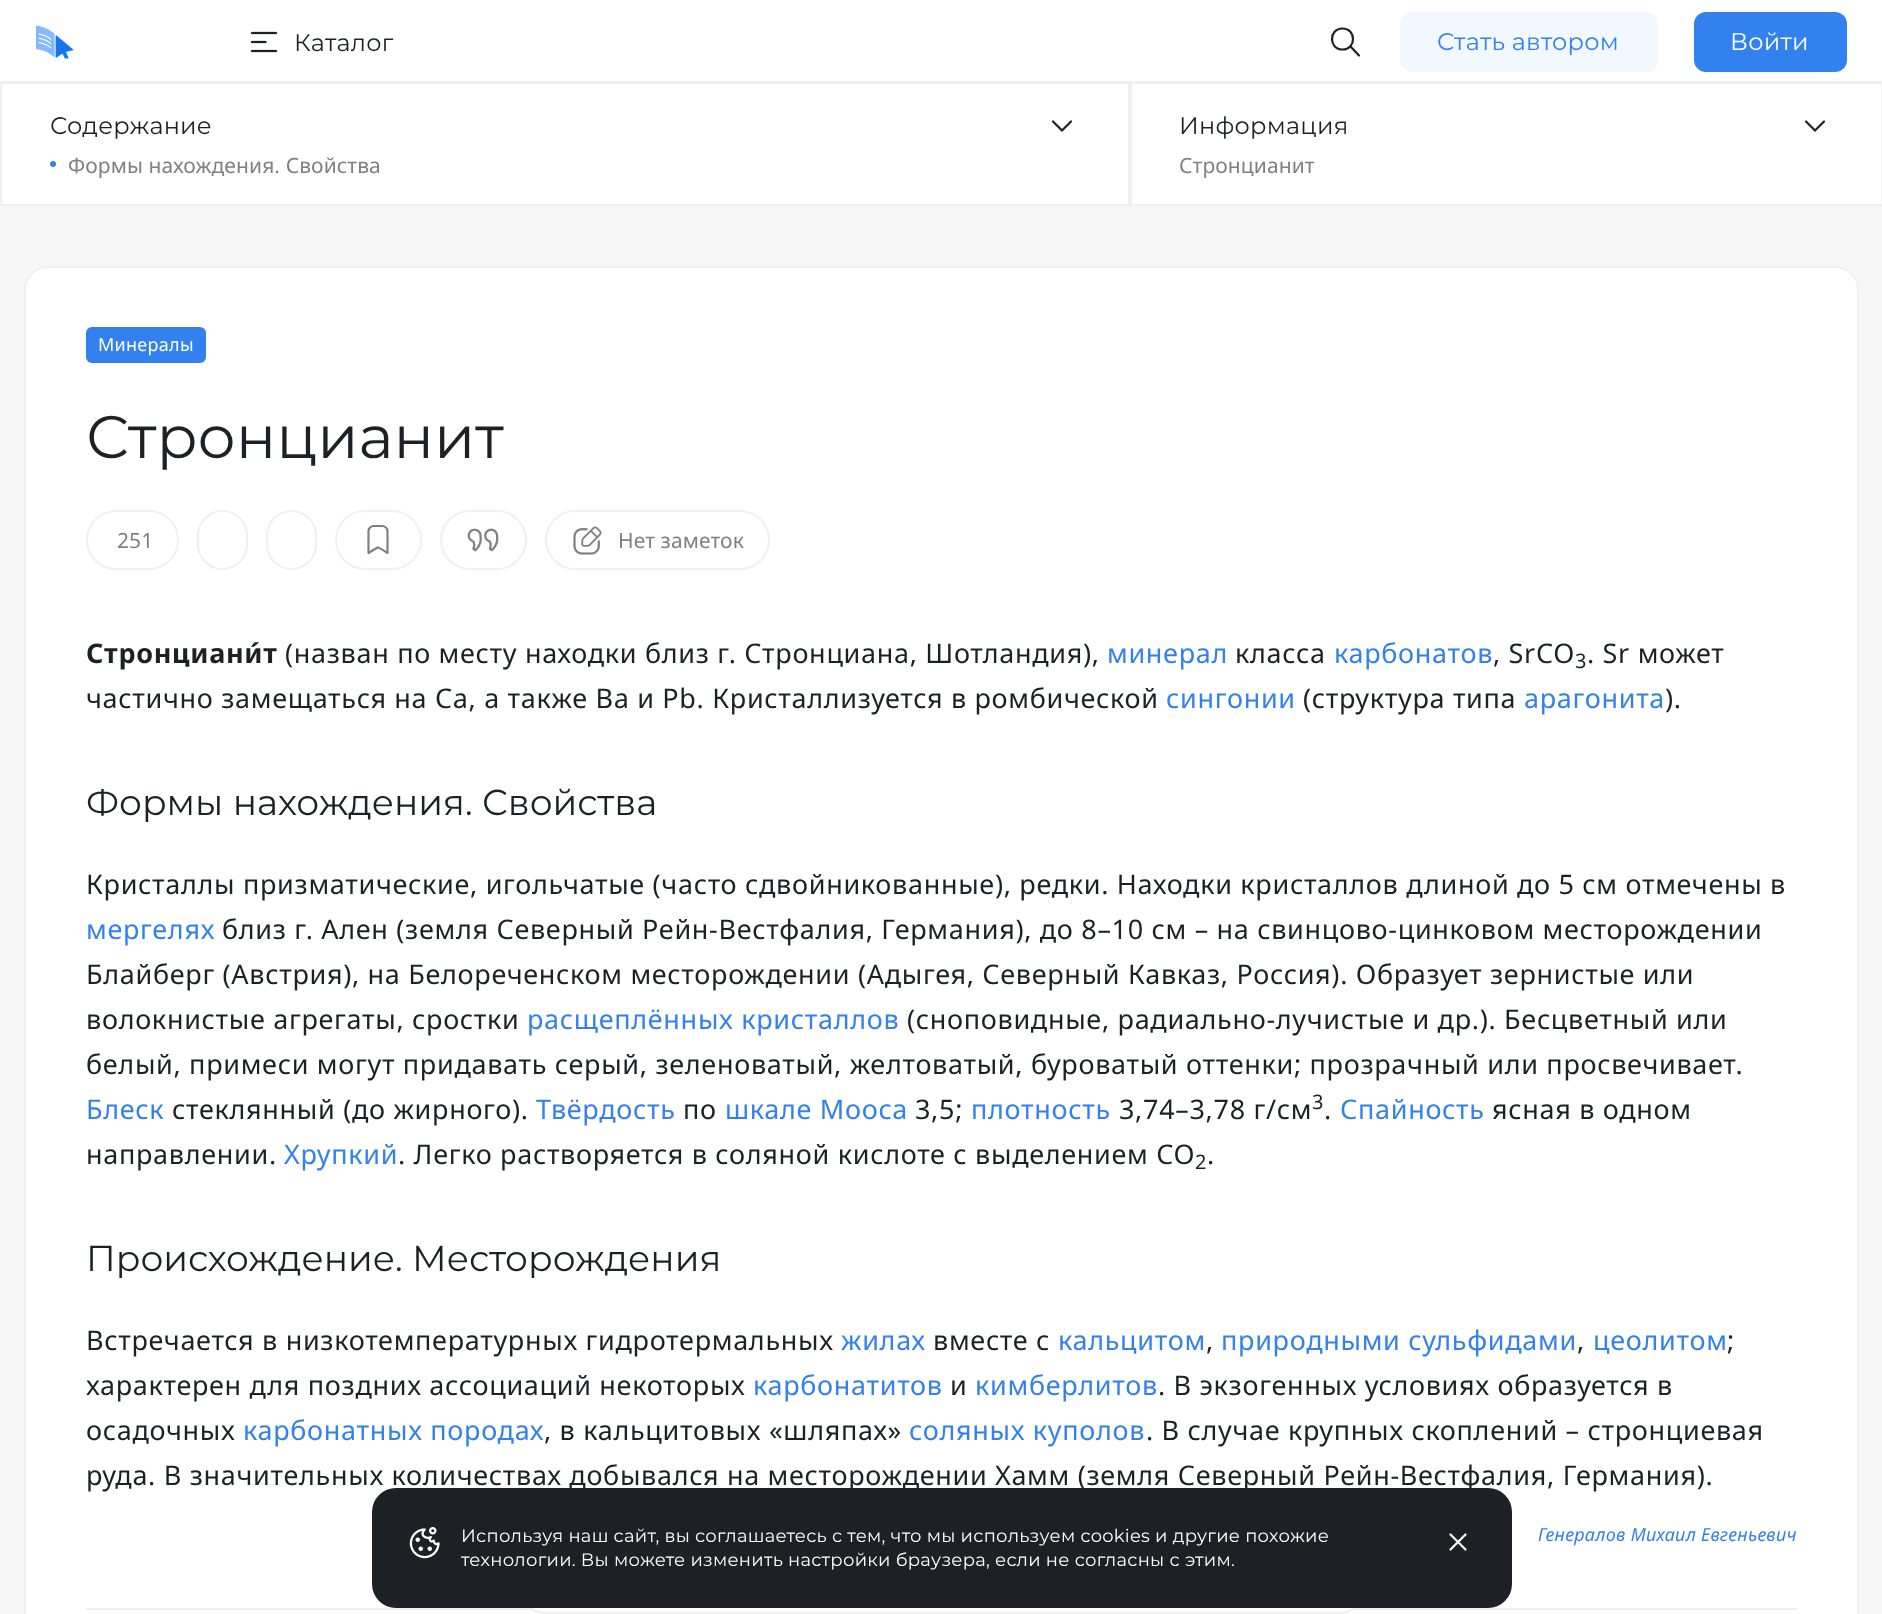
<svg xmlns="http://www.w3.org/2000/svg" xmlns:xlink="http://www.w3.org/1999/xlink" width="1882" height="1614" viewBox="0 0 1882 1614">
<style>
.cls-1{font:24px Montserrat;letter-spacing:0.25px;fill:#1d2126}
.cls-2{font:24px Montserrat;letter-spacing:0.25px;fill:#3380ef}
.cls-3{font:24px Montserrat;letter-spacing:0.25px;fill:#ffffff}
.cls-4{font:21px Noto Sans;letter-spacing:0.1px;fill:#808080}
.cls-5{font:18px Noto Sans;letter-spacing:0.27px;fill:#ffffff}
.cls-6{font:60px Montserrat;fill:#1d2126}
.cls-7{font:bold 27px Noto Sans;letter-spacing:0.68px;fill:#1d2126}
.cls-8{font:27px Noto Sans;letter-spacing:0.68px;fill:#1d2126}
.cls-9{font:27px Noto Sans;letter-spacing:0.68px;fill:#3380ef}
.cls-10{font:20px Noto Sans;letter-spacing:0.68px;fill:#1d2126}
.cls-11{font:36px Montserrat;fill:#1d2126}
.cls-12{font:italic 18px Noto Sans;letter-spacing:0.27px;fill:#3380ef}
.cls-13{font:18px Montserrat;letter-spacing:0.27px;fill:#ffffff}
</style>
<rect width="100%" height="100%" fill="#f7f7f7"/>
<rect fill="#ffffff" x="0" y="0" width="1882" height="81"/>
<rect fill="#f0f0f0" x="0" y="81" width="1882" height="3"/>
<image xlink:href="image0.png" x="36" y="25" width="38" height="34"/>
<image xlink:href="image1.png" x="250" y="31" width="28" height="22"/>
<path fill="none" stroke="#1d2126" stroke-width="2.2" stroke-linecap="round" stroke-linejoin="round" d="M1342.5 49.5C1356.5 49.5 1356.5 28.5 1342.5 28.5C1328.5 28.5 1328.5 49.5 1342.5 49.5ZM1359 55.5L1351 47"/>
<rect fill="#f1f8ff" x="1400" y="12" width="258" height="60" rx="12"/>
<rect fill="#3380ef" x="1694" y="12" width="153" height="60" rx="12"/>
<rect fill="#ffffff" x="2" y="84" width="1126" height="120"/>
<rect fill="#f0f0f0" x="1128" y="84" width="2" height="122"/>
<rect fill="#f0f0f0" x="0" y="204" width="1130" height="2"/>
<rect fill="#f0f0f0" x="0" y="84" width="2" height="122"/>
<path fill="none" stroke="#1d2126" stroke-width="2.2" stroke-linecap="round" d="M1053 121.5L1062 130.5L1071 121.5"/>
<circle fill="#3380ef" cx="53" cy="164" r="3"/>
<rect fill="#ffffff" x="1132" y="84" width="749" height="120"/>
<rect fill="#f0f0f0" x="1881" y="84" width="1" height="122"/>
<rect fill="#f0f0f0" x="1130" y="204" width="752" height="2"/>
<rect fill="#f0f0f0" x="1130" y="84" width="2" height="122"/>
<path fill="none" stroke="#1d2126" stroke-width="2.2" stroke-linecap="round" d="M1806 121.5L1815 130.5L1824 121.5"/>
<rect fill="#ffffff" stroke="#f0f0f0" stroke-width="2" x="25" y="267" width="1833" height="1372" rx="23"/>
<rect fill="#3380ef" x="86" y="327" width="120" height="36" rx="6"/>
<rect fill="none" stroke="#f0f0f0" stroke-width="2" x="87" y="511" width="91" height="58" rx="29"/>
<rect fill="none" stroke="#f0f0f0" stroke-width="2" x="198" y="511" width="49" height="58" rx="24.5"/>
<rect fill="none" stroke="#f0f0f0" stroke-width="2" x="267" y="511" width="49" height="58" rx="24.5"/>
<rect fill="none" stroke="#f0f0f0" stroke-width="2" x="336" y="511" width="85" height="58" rx="29"/>
<path fill="none" stroke="#808080" stroke-width="2.2" stroke-linejoin="round" d="M377.5 547.5L368.5 553V531C368.5 528.5 371 526 373.5 526H382.5C385 526 387.5 528.5 387.5 531V553C386 552 378.5 547 377.5 547.5Z"/>
<rect fill="none" stroke="#f0f0f0" stroke-width="2" x="441" y="511" width="85" height="58" rx="29"/>
<image xlink:href="image2.png" x="467" y="528" width="32" height="24"/>
<rect fill="none" stroke="#f0f0f0" stroke-width="2" x="546" y="511" width="223" height="58" rx="29"/>
<image xlink:href="image3.png" x="573" y="526" width="29" height="29"/>
<rect fill="#f0f0f0" x="86" y="1608" width="1711" height="2"/>
<rect fill="#ffffff" stroke="#f0f0f0" stroke-width="2" x="522" y="1504" width="841" height="109" rx="23"/>
<rect fill="#1d2126" x="372" y="1488" width="1140" height="120" rx="24"/>
<image xlink:href="image4.png" x="409" y="1527" width="31" height="32"/>
<path fill="none" stroke="#ffffff" stroke-width="2.2" stroke-linecap="round" stroke-linejoin="round" d="M1465.5 1549.5L1450.5 1534.5M1465.5 1534.5L1450.5 1549.5"/>
<text class="cls-1" x="294" y="51">Каталог</text>
<text class="cls-2" x="1437" y="50">Стать автором</text>
<text class="cls-3" x="1730" y="50">Войти</text>
<text class="cls-1" x="50" y="134">Содержание</text>
<text class="cls-4" x="68" y="173">Формы нахождения. Свойства</text>
<text class="cls-1" x="1179" y="134">Информация</text>
<text class="cls-4" x="1179" y="173">Стронцианит</text>
<text class="cls-5" x="98" y="351">Минералы</text>
<text class="cls-6" x="86" y="458">Стронцианит</text>
<text class="cls-4" x="117" y="548">251</text>
<text class="cls-4" x="618" y="548">Нет заметок</text>
<text class="cls-7" x="86" y="663">Стронциани́т</text>
<text class="cls-8" x="285" y="663">(назван по месту находки близ г. Cтронциана, Шотландия),</text>
<text class="cls-9" x="1107" y="663">минерал</text>
<text class="cls-8" x="1235" y="663">класса</text>
<text class="cls-9" x="1334" y="663">карбонатов</text>
<text class="cls-8" x="1493" y="663">, SrCO</text>
<text class="cls-10" x="1575" y="668">3</text>
<text class="cls-8" x="1587" y="663">. Sr может</text>
<text class="cls-8" x="86" y="708">частично замещаться на Ca, а также Ba и Pb. Кристаллизуется в ромбической</text>
<text class="cls-9" x="1166" y="708">сингонии</text>
<text class="cls-8" x="1303" y="708">(структура типа</text>
<text class="cls-9" x="1524" y="708">арагонита</text>
<text class="cls-8" x="1665" y="708">).</text>
<text class="cls-11" x="86" y="815">Формы нахождения. Свойства</text>
<text class="cls-8" x="86" y="894">Кристаллы призматические, игольчатые (часто сдвойникованные), редки. Находки кристаллов длиной до 5 см отмечены в</text>
<text class="cls-9" x="86" y="939">мергелях</text>
<text class="cls-8" x="222" y="939">близ г. Ален (земля Северный Рейн-Вестфалия, Германия), до 8–10 см – на свинцово-цинковом месторождении</text>
<text class="cls-8"><tspan x="86" y="984">Блайберг (Австрия), на Белореченском месторождении (Адыгея, Северный Кавказ, Россия). Образует зернистые или</tspan><tspan x="86" y="1029">волокнистые агрегаты, сростки</tspan></text>
<text class="cls-9" x="527" y="1029">расщеплённых кристаллов</text>
<text class="cls-8" x="907" y="1029">(сноповидные, радиально-лучистые и др.). Бесцветный или</text>
<text class="cls-8" x="86" y="1074">белый, примеси могут придавать серый, зеленоватый, желтоватый, буроватый оттенки; прозрачный или просвечивает.</text>
<text class="cls-9" x="86" y="1119">Блеск</text>
<text class="cls-8" x="172" y="1119">стеклянный (до жирного).</text>
<text class="cls-9" x="536" y="1119">Твёрдость</text>
<text class="cls-8" x="683" y="1119">по</text>
<text class="cls-9" x="725" y="1119">шкале Мооса</text>
<text class="cls-8" x="915" y="1119">3,5;</text>
<text class="cls-9" x="971" y="1119">плотность</text>
<text class="cls-8" x="1119" y="1119">3,74–3,78 г/см</text>
<text class="cls-10" x="1312" y="1109">3</text>
<text class="cls-8" x="1324" y="1119">.</text>
<text class="cls-9" x="1340" y="1119">Спайность</text>
<text class="cls-8" x="1492" y="1119">ясная в одном</text>
<text class="cls-8" x="86" y="1164">направлении.</text>
<text class="cls-9" x="284" y="1164">Хрупкий</text>
<text class="cls-8" x="398" y="1164">. Легко растворяется в соляной кислоте с выделением CO</text>
<text class="cls-10" x="1195" y="1169">2</text>
<text class="cls-8" x="1207" y="1164">.</text>
<text class="cls-11" x="86" y="1271">Происхождение. Месторождения</text>
<text class="cls-8" x="86" y="1350">Встречается в низкотемпературных гидротермальных</text>
<text class="cls-9" x="841" y="1350">жилах</text>
<text class="cls-8" x="933" y="1350">вместе с</text>
<text class="cls-9" x="1058" y="1350">кальцитом</text>
<text class="cls-8" x="1206" y="1350">,</text>
<text class="cls-9" x="1221" y="1350">природными сульфидами</text>
<text class="cls-8" x="1577" y="1350">,</text>
<text class="cls-9" x="1593" y="1350">цеолитом</text>
<text class="cls-8" x="1727" y="1350">;</text>
<text class="cls-8" x="86" y="1395">характерен для поздних ассоциаций некоторых</text>
<text class="cls-9" x="753" y="1395">карбонатитов</text>
<text class="cls-8" x="950" y="1395">и</text>
<text class="cls-9" x="975" y="1395">кимберлитов</text>
<text class="cls-8" x="1158" y="1395">. В экзогенных условиях образуется в</text>
<text class="cls-8" x="86" y="1440">осадочных</text>
<text class="cls-9" x="243" y="1440">карбонатных породах</text>
<text class="cls-8" x="544" y="1440">, в кальцитовых «шляпах»</text>
<text class="cls-9" x="909" y="1440">соляных куполов</text>
<text class="cls-8" x="1146" y="1440">. В случае крупных скоплений – стронциевая</text>
<text class="cls-8" x="86" y="1485">руда. В значительных количествах добывался на месторождении Хамм (земля Северный Рейн-Вестфалия, Германия).</text>
<text class="cls-12" x="1538" y="1541">Генералов Михаил Евгеньевич</text>
<text class="cls-13"><tspan x="461" y="1542">Используя наш сайт, вы соглашаетесь с тем, что мы используем cookies и другие похожие</tspan><tspan x="461" y="1566">технологии. Вы можете изменить настройки браузера, если не согласны с этим.</tspan></text>
</svg>
